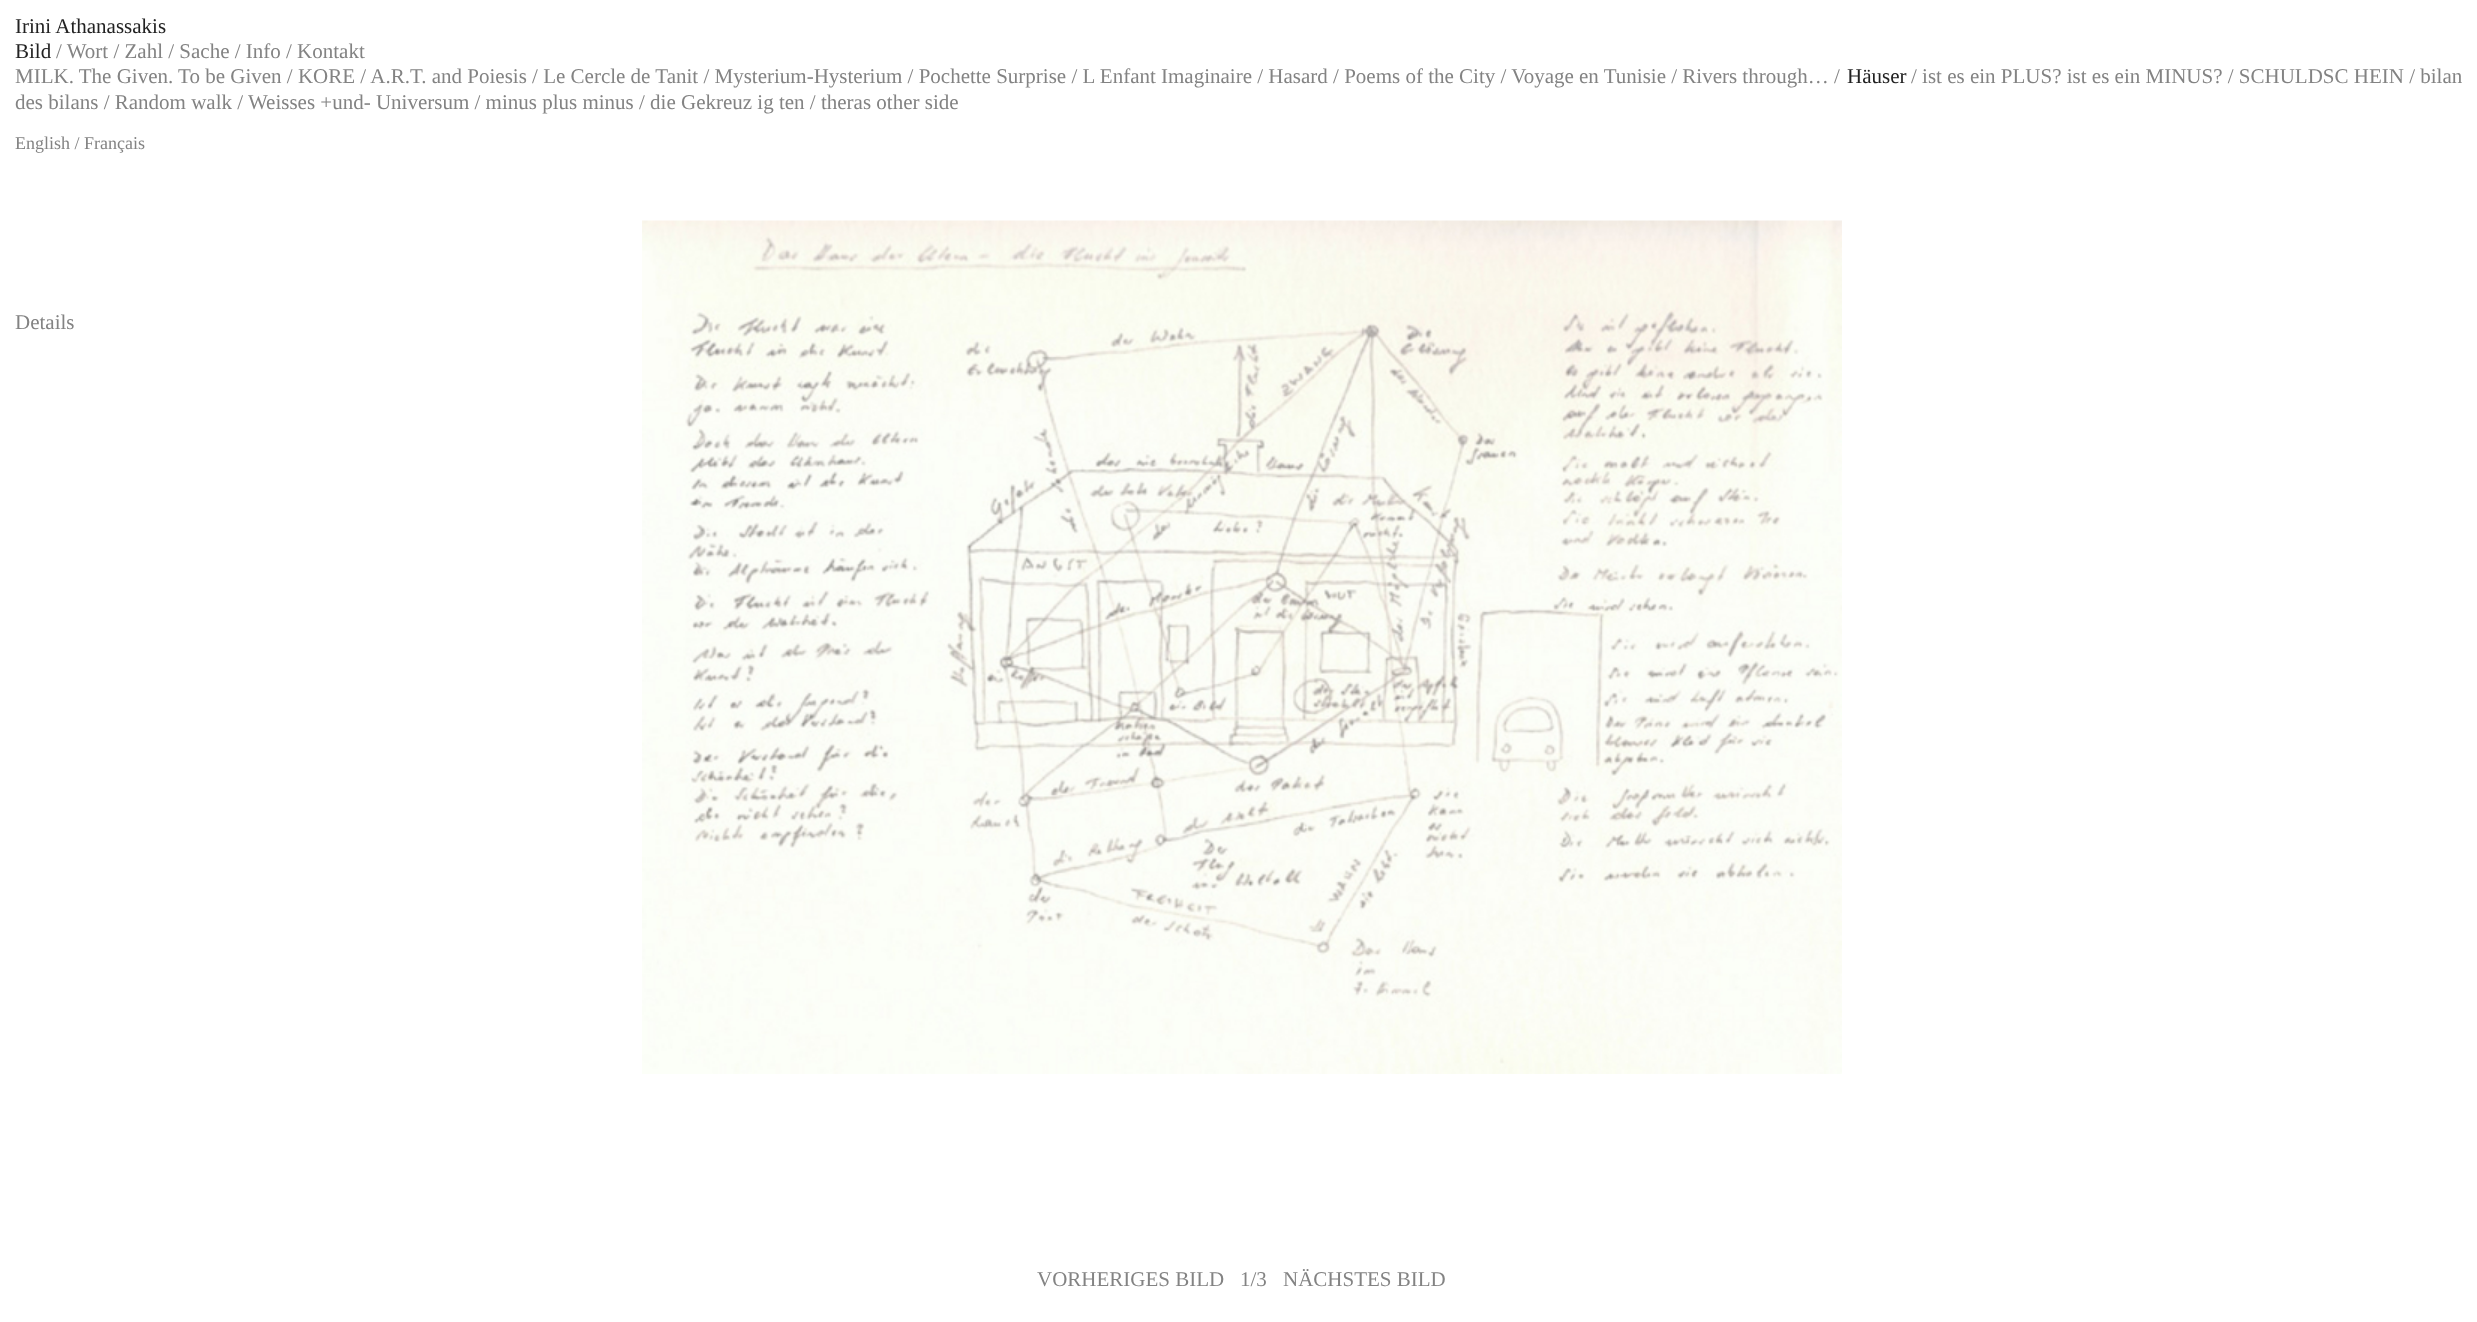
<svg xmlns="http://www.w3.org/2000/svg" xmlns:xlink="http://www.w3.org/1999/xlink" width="2477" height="1322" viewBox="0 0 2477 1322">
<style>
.cls-1{font:21px Liberation Serif;fill:#222222}
.cls-2{font:21px Liberation Serif;fill:#838383}
.cls-3{font:18px Liberation Serif;fill:#838383}
</style>
<rect width="100%" height="100%" fill="#ffffff"/>
<image xlink:href="image0.png" x="642" y="220" width="1200" height="854"/>
<text class="cls-1"><tspan x="15" y="33">Irini Athanassakis</tspan><tspan x="15" y="58">Bild</tspan></text>
<text class="cls-2" x="56" y="58">/ Wort / Zahl / Sache / Info / Kontakt</text>
<text class="cls-2" x="15" y="83">MILK. The Given. To be Given / KORE / A.R.T. and Poiesis / Le Cercle de Tanit / Mysterium-Hysterium / Pochette Surprise / L Enfant Imaginaire / Hasard / Poems of the City / Voyage en Tunisie / Rivers through… /</text>
<text class="cls-1" x="1847" y="83">Häuser</text>
<text class="cls-2" x="1911" y="83">/ ist es ein PLUS? ist es ein MINUS? / SCHULDSC HEIN / bilan</text>
<text class="cls-2" x="15" y="109">des bilans / Random walk / Weisses +und- Universum / minus plus minus / die Gekreuz ig ten / theras other side</text>
<text class="cls-3" x="15" y="149">English / Français</text>
<text class="cls-2" x="15" y="329">Details</text>
<text class="cls-2" x="1037" y="1286">VORHERIGES BILD</text>
<text class="cls-2" x="1240" y="1286">1/3</text>
<text class="cls-2" x="1283" y="1286">NÄCHSTES BILD</text>
</svg>
